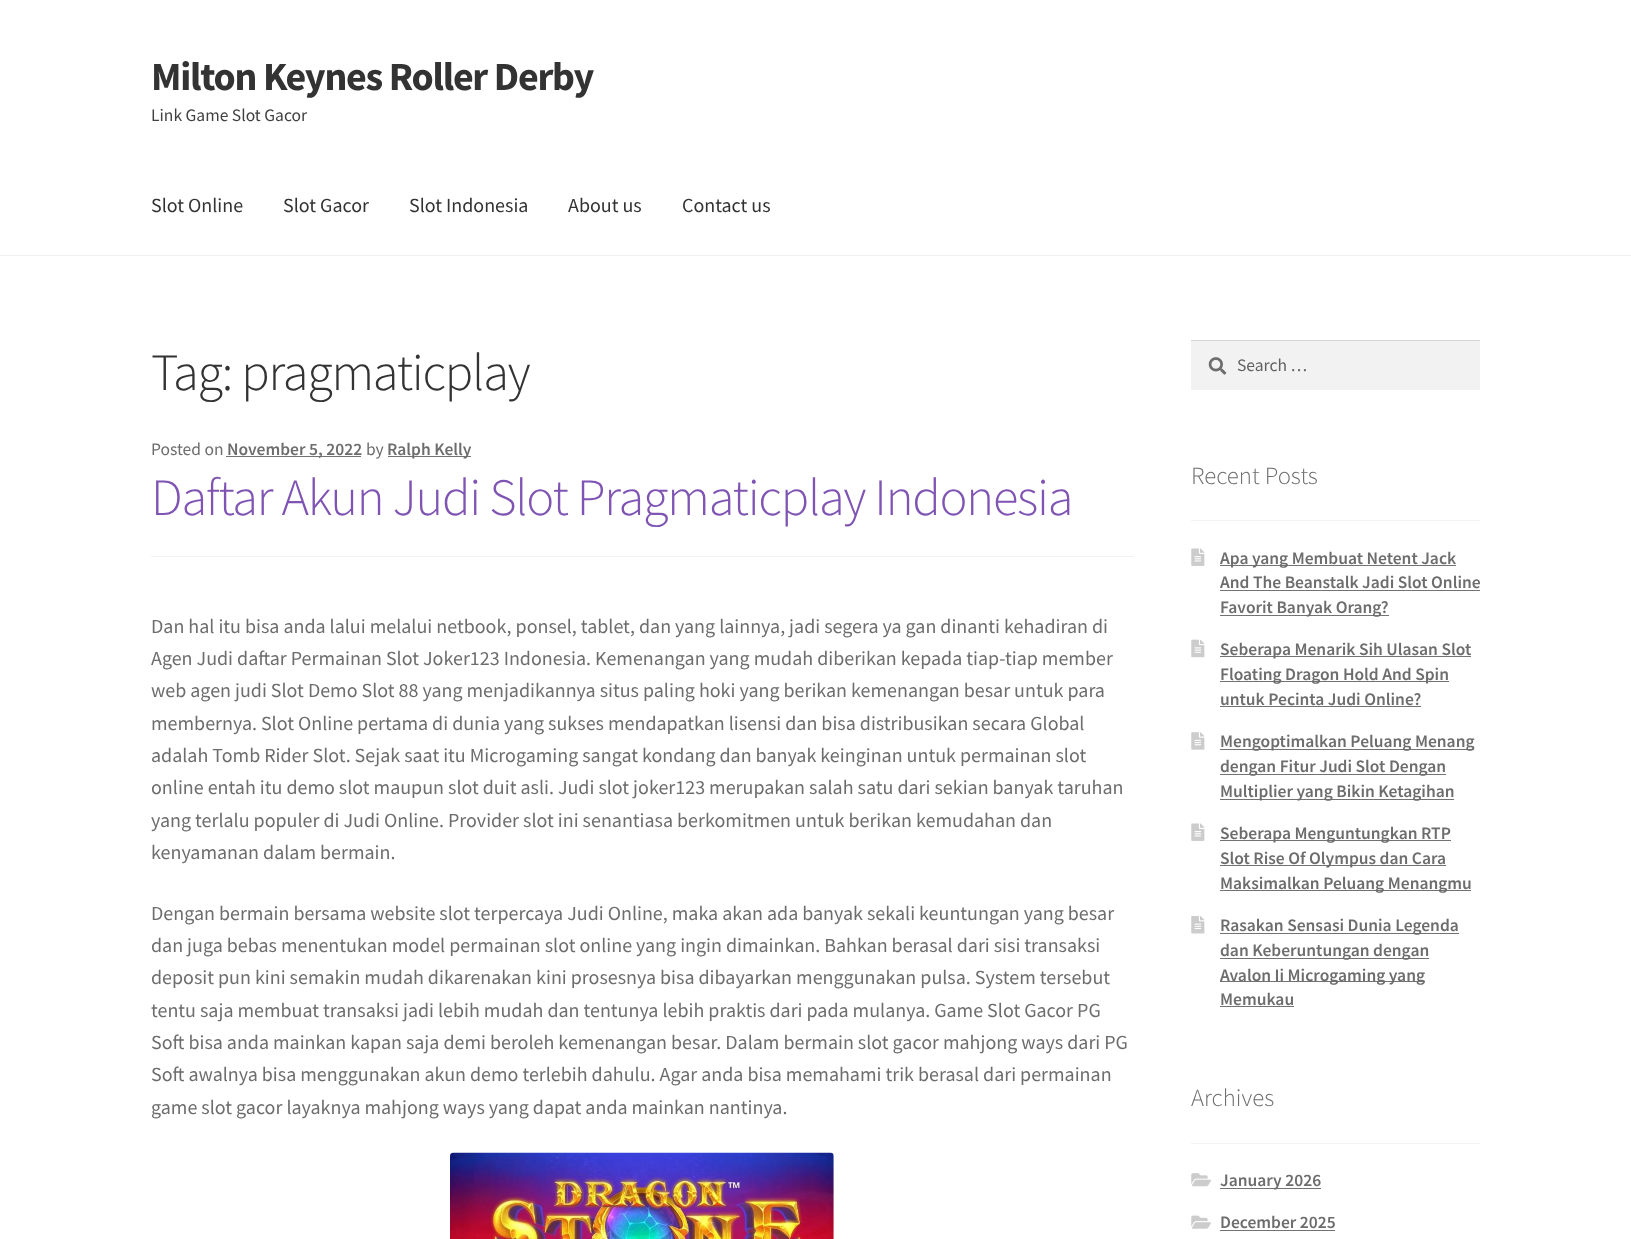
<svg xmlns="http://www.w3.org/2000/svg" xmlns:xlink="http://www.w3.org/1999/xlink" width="1631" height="1239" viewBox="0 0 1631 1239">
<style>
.cls-1{font:bold 40px Source Sans Pro;letter-spacing:-1.25px;fill:#333333}
.cls-2{font:17.5px Source Sans Pro;fill:#404040}
.cls-3{font:20px Source Sans Pro;fill:#333333}
.cls-4{font:300 52.4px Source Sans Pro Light;letter-spacing:-1.25px;fill:#333333}
.cls-5{font:17.5px Source Sans Pro;fill:#6d6d6d}
.cls-6{font:600 17.5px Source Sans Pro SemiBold;fill:#6d6d6d}
.cls-7{font:300 52.4px Source Sans Pro Light;letter-spacing:-1.25px;fill:#7f54b3}
.cls-8{font:20px Source Sans Pro;fill:#6d6d6d}
.cls-9{font:17.5px Source Sans Pro;fill:#616161}
.cls-10{font:300 24.75px Source Sans Pro Light;fill:#6d6d6d}
</style>
<rect width="100%" height="100%" fill="#ffffff"/>
<rect fill="#f0f0f0" x="0" y="255" width="1631" height="1"/>
<rect fill="#f2f2f2" x="151" y="556" width="983" height="1"/>
<rect fill="#727272" x="226" y="456" width="135" height="1"/>
<rect fill="#727272" x="388" y="456" width="83" height="1"/>
<image xlink:href="image0.png" x="450" y="1152" width="384" height="87"/>
<rect fill="#f2f2f2" x="1191" y="341" width="289" height="49"/>
<image xlink:href="image1.png" x="1208" y="357" width="19" height="18"/>
<rect fill="#d4d4d4" x="1191" y="340" width="289" height="1"/>
<rect fill="#f2f2f2" x="1191" y="520" width="289" height="1"/>
<image xlink:href="image2.png" x="1191" y="548" width="14" height="18"/>
<rect fill="#727272" x="1220" y="565" width="236" height="1"/>
<rect fill="#727272" x="1220" y="590" width="260" height="1"/>
<rect fill="#727272" x="1220" y="615" width="169" height="1"/>
<image xlink:href="image3.png" x="1191" y="639" width="14" height="19"/>
<rect fill="#727272" x="1220" y="656" width="251" height="1"/>
<rect fill="#727272" x="1220" y="681" width="229" height="1"/>
<rect fill="#727272" x="1220" y="706" width="201" height="1"/>
<image xlink:href="image4.png" x="1191" y="732" width="14" height="18"/>
<rect fill="#727272" x="1220" y="749" width="254" height="1"/>
<rect fill="#727272" x="1220" y="774" width="226" height="1"/>
<rect fill="#727272" x="1220" y="799" width="234" height="1"/>
<image xlink:href="image2.png" x="1191" y="823" width="14" height="18"/>
<rect fill="#727272" x="1220" y="840" width="231" height="1"/>
<rect fill="#727272" x="1220" y="865" width="226" height="1"/>
<rect fill="#727272" x="1220" y="890" width="251" height="1"/>
<image xlink:href="image5.png" x="1191" y="916" width="14" height="18"/>
<rect fill="#727272" x="1220" y="933" width="239" height="1"/>
<rect fill="#727272" x="1220" y="958" width="209" height="1"/>
<rect fill="#727272" x="1220" y="981" width="205" height="1"/>
<rect fill="#727272" x="1220" y="1006" width="74" height="1"/>
<rect fill="#f2f2f2" x="1191" y="1143" width="289" height="1"/>
<image xlink:href="image6.png" x="1191" y="1173" width="20" height="14"/>
<rect fill="#727272" x="1220" y="1188" width="101" height="1"/>
<image xlink:href="image7.png" x="1191" y="1215" width="20" height="14"/>
<rect fill="#727272" x="1220" y="1230" width="115" height="1"/>
<text class="cls-1" x="151" y="90">Milton Keynes Roller Derby</text>
<text class="cls-2" x="151" y="121">Link Game Slot Gacor</text>
<text class="cls-3" x="151" y="212">Slot Online</text>
<text class="cls-3" x="283" y="212">Slot Gacor</text>
<text class="cls-3" x="409" y="212">Slot Indonesia</text>
<text class="cls-3" x="568" y="212">About us</text>
<text class="cls-3" x="682" y="212">Contact us</text>
<text class="cls-4" x="151" y="390">Tag: pragmaticplay</text>
<text class="cls-5" x="151" y="455">Posted on</text>
<text class="cls-6" x="227" y="455">November 5, 2022</text>
<text class="cls-5" x="366" y="455">by</text>
<text class="cls-6" x="387" y="455">Ralph Kelly</text>
<text class="cls-7" x="151" y="515">Daftar Akun Judi Slot Pragmaticplay Indonesia</text>
<text class="cls-8"><tspan x="151" y="633">Dan hal itu bisa anda lalui melalui netbook, ponsel, tablet, dan yang lainnya, jadi segera ya gan dinanti kehadiran di</tspan><tspan x="151" y="665">Agen Judi daftar Permainan Slot Joker123 Indonesia. Kemenangan yang mudah diberikan kepada tiap-tiap member</tspan><tspan x="151" y="697">web agen judi Slot Demo Slot 88 yang menjadikannya situs paling hoki yang berikan kemenangan besar untuk para</tspan><tspan x="151" y="730">membernya. Slot Online pertama di dunia yang sukses mendapatkan lisensi dan bisa distribusikan secara Global</tspan><tspan x="151" y="762">adalah Tomb Rider Slot. Sejak saat itu Microgaming sangat kondang dan banyak keinginan untuk permainan slot</tspan><tspan x="151" y="794">online entah itu demo slot maupun slot duit asli. Judi slot joker123 merupakan salah satu dari sekian banyak taruhan</tspan><tspan x="151" y="827">yang terlalu populer di Judi Online. Provider slot ini senantiasa berkomitmen untuk berikan kemudahan dan</tspan><tspan x="151" y="859">kenyamanan dalam bermain.</tspan></text>
<text class="cls-8"><tspan x="151" y="920">Dengan bermain bersama website slot terpercaya Judi Online, maka akan ada banyak sekali keuntungan yang besar</tspan><tspan x="151" y="952">dan juga bebas menentukan model permainan slot online yang ingin dimainkan. Bahkan berasal dari sisi transaksi</tspan><tspan x="151" y="984">deposit pun kini semakin mudah dikarenakan kini prosesnya bisa dibayarkan menggunakan pulsa. System tersebut</tspan><tspan x="151" y="1017">tentu saja membuat transaksi jadi lebih mudah dan tentunya lebih praktis dari pada mulanya. Game Slot Gacor PG</tspan><tspan x="151" y="1049">Soft bisa anda mainkan kapan saja demi beroleh kemenangan besar. Dalam bermain slot gacor mahjong ways dari PG</tspan><tspan x="151" y="1081">Soft awalnya bisa menggunakan akun demo terlebih dahulu. Agar anda bisa memahami trik berasal dari permainan</tspan><tspan x="151" y="1114">game slot gacor layaknya mahjong ways yang dapat anda mainkan nantinya.</tspan></text>
<text class="cls-9" x="1237" y="371">Search …</text>
<text class="cls-10" x="1191" y="484">Recent Posts</text>
<text class="cls-6"><tspan x="1220" y="564">Apa yang Membuat Netent Jack</tspan><tspan x="1220" y="588">And The Beanstalk Jadi Slot Online</tspan><tspan x="1220" y="613">Favorit Banyak Orang?</tspan></text>
<text class="cls-6"><tspan x="1220" y="655">Seberapa Menarik Sih Ulasan Slot</tspan><tspan x="1220" y="680">Floating Dragon Hold And Spin</tspan><tspan x="1220" y="705">untuk Pecinta Judi Online?</tspan></text>
<text class="cls-6"><tspan x="1220" y="747">Mengoptimalkan Peluang Menang</tspan><tspan x="1220" y="772">dengan Fitur Judi Slot Dengan</tspan><tspan x="1220" y="797">Multiplier yang Bikin Ketagihan</tspan></text>
<text class="cls-6"><tspan x="1220" y="839">Seberapa Menguntungkan RTP</tspan><tspan x="1220" y="864">Slot Rise Of Olympus dan Cara</tspan><tspan x="1220" y="889">Maksimalkan Peluang Menangmu</tspan></text>
<text class="cls-6"><tspan x="1220" y="931">Rasakan Sensasi Dunia Legenda</tspan><tspan x="1220" y="956">dan Keberuntungan dengan</tspan><tspan x="1220" y="981">Avalon Ii Microgaming yang</tspan><tspan x="1220" y="1005">Memukau</tspan></text>
<text class="cls-10" x="1191" y="1106">Archives</text>
<text class="cls-6" x="1220" y="1186">January 2026</text>
<text class="cls-6" x="1220" y="1228">December 2025</text>
</svg>
